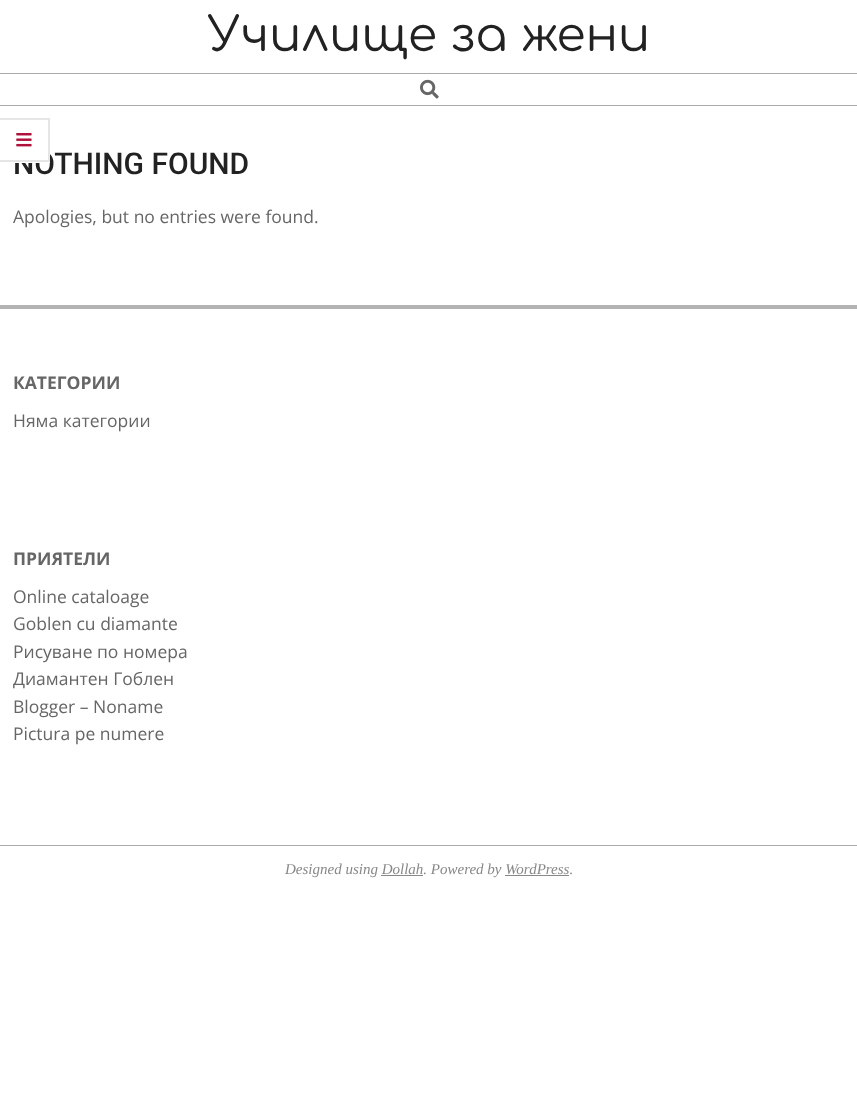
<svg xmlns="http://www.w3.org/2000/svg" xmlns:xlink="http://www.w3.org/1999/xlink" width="857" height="1113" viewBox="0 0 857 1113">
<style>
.cls-1{font:47.5px Comfortaa;fill:#222222}
.cls-2{font:500 30px Roboto;fill:#222222}
.cls-3{font:17.5px Open Sans;fill:#666666}
.cls-4{font:bold 17.5px Open Sans;fill:#666666}
.cls-5{font:italic 15px Liberation Serif;fill:#888888}
</style>
<rect width="100%" height="100%" fill="#ffffff"/>
<rect fill="#aaaaaa" x="0" y="105" width="857" height="1"/>
<rect fill="#aaaaaa" x="0" y="73" width="857" height="1"/>
<image xlink:href="image0.png" x="420" y="79" width="19" height="20"/>
<path fill="#e6e6e6" d="M0 118H50L48 120H0Z"/>
<image xlink:href="image1.png" x="16" y="133" width="16" height="14"/>
<rect fill="#b3b3b3" x="0" y="305" width="857" height="4"/>
<rect fill="#ababab" x="0" y="845" width="857" height="1"/>
<rect fill="#888888" x="381" y="875" width="42" height="1"/>
<rect fill="#888888" x="505" y="875" width="64" height="1"/>
<text class="cls-1" x="208" y="51">Училище за жени</text>
<text class="cls-2" x="13" y="174">NOTHING FOUND</text>
<rect fill="#ffffff" x="14" y="152" width="36" height="11"/>
<path fill="#000000" fill-opacity="0.1" d="M50 118V162L48 160V120Z"/>
<path fill="#000000" fill-opacity="0.1" d="M50 162H0V160H48Z"/>
<text class="cls-3" x="13" y="223">Apologies, but no entries were found.</text>
<text class="cls-4" x="13" y="389">КАТЕГОРИИ</text>
<text class="cls-3" x="13" y="427">Няма категории</text>
<text class="cls-4" x="13" y="565">ПРИЯТЕЛИ</text>
<text class="cls-3"><tspan x="13" y="603">Online cataloage</tspan><tspan x="13" y="630">Goblen cu diamante</tspan><tspan x="13" y="658">Рисуване по номера</tspan><tspan x="13" y="685">Диамантен Гоблен</tspan><tspan x="13" y="713">Blogger – Noname</tspan><tspan x="13" y="740">Pictura pe numere</tspan></text>
<text class="cls-5" x="285" y="874">Designed using Dollah. Powered by WordPress.</text>
</svg>
